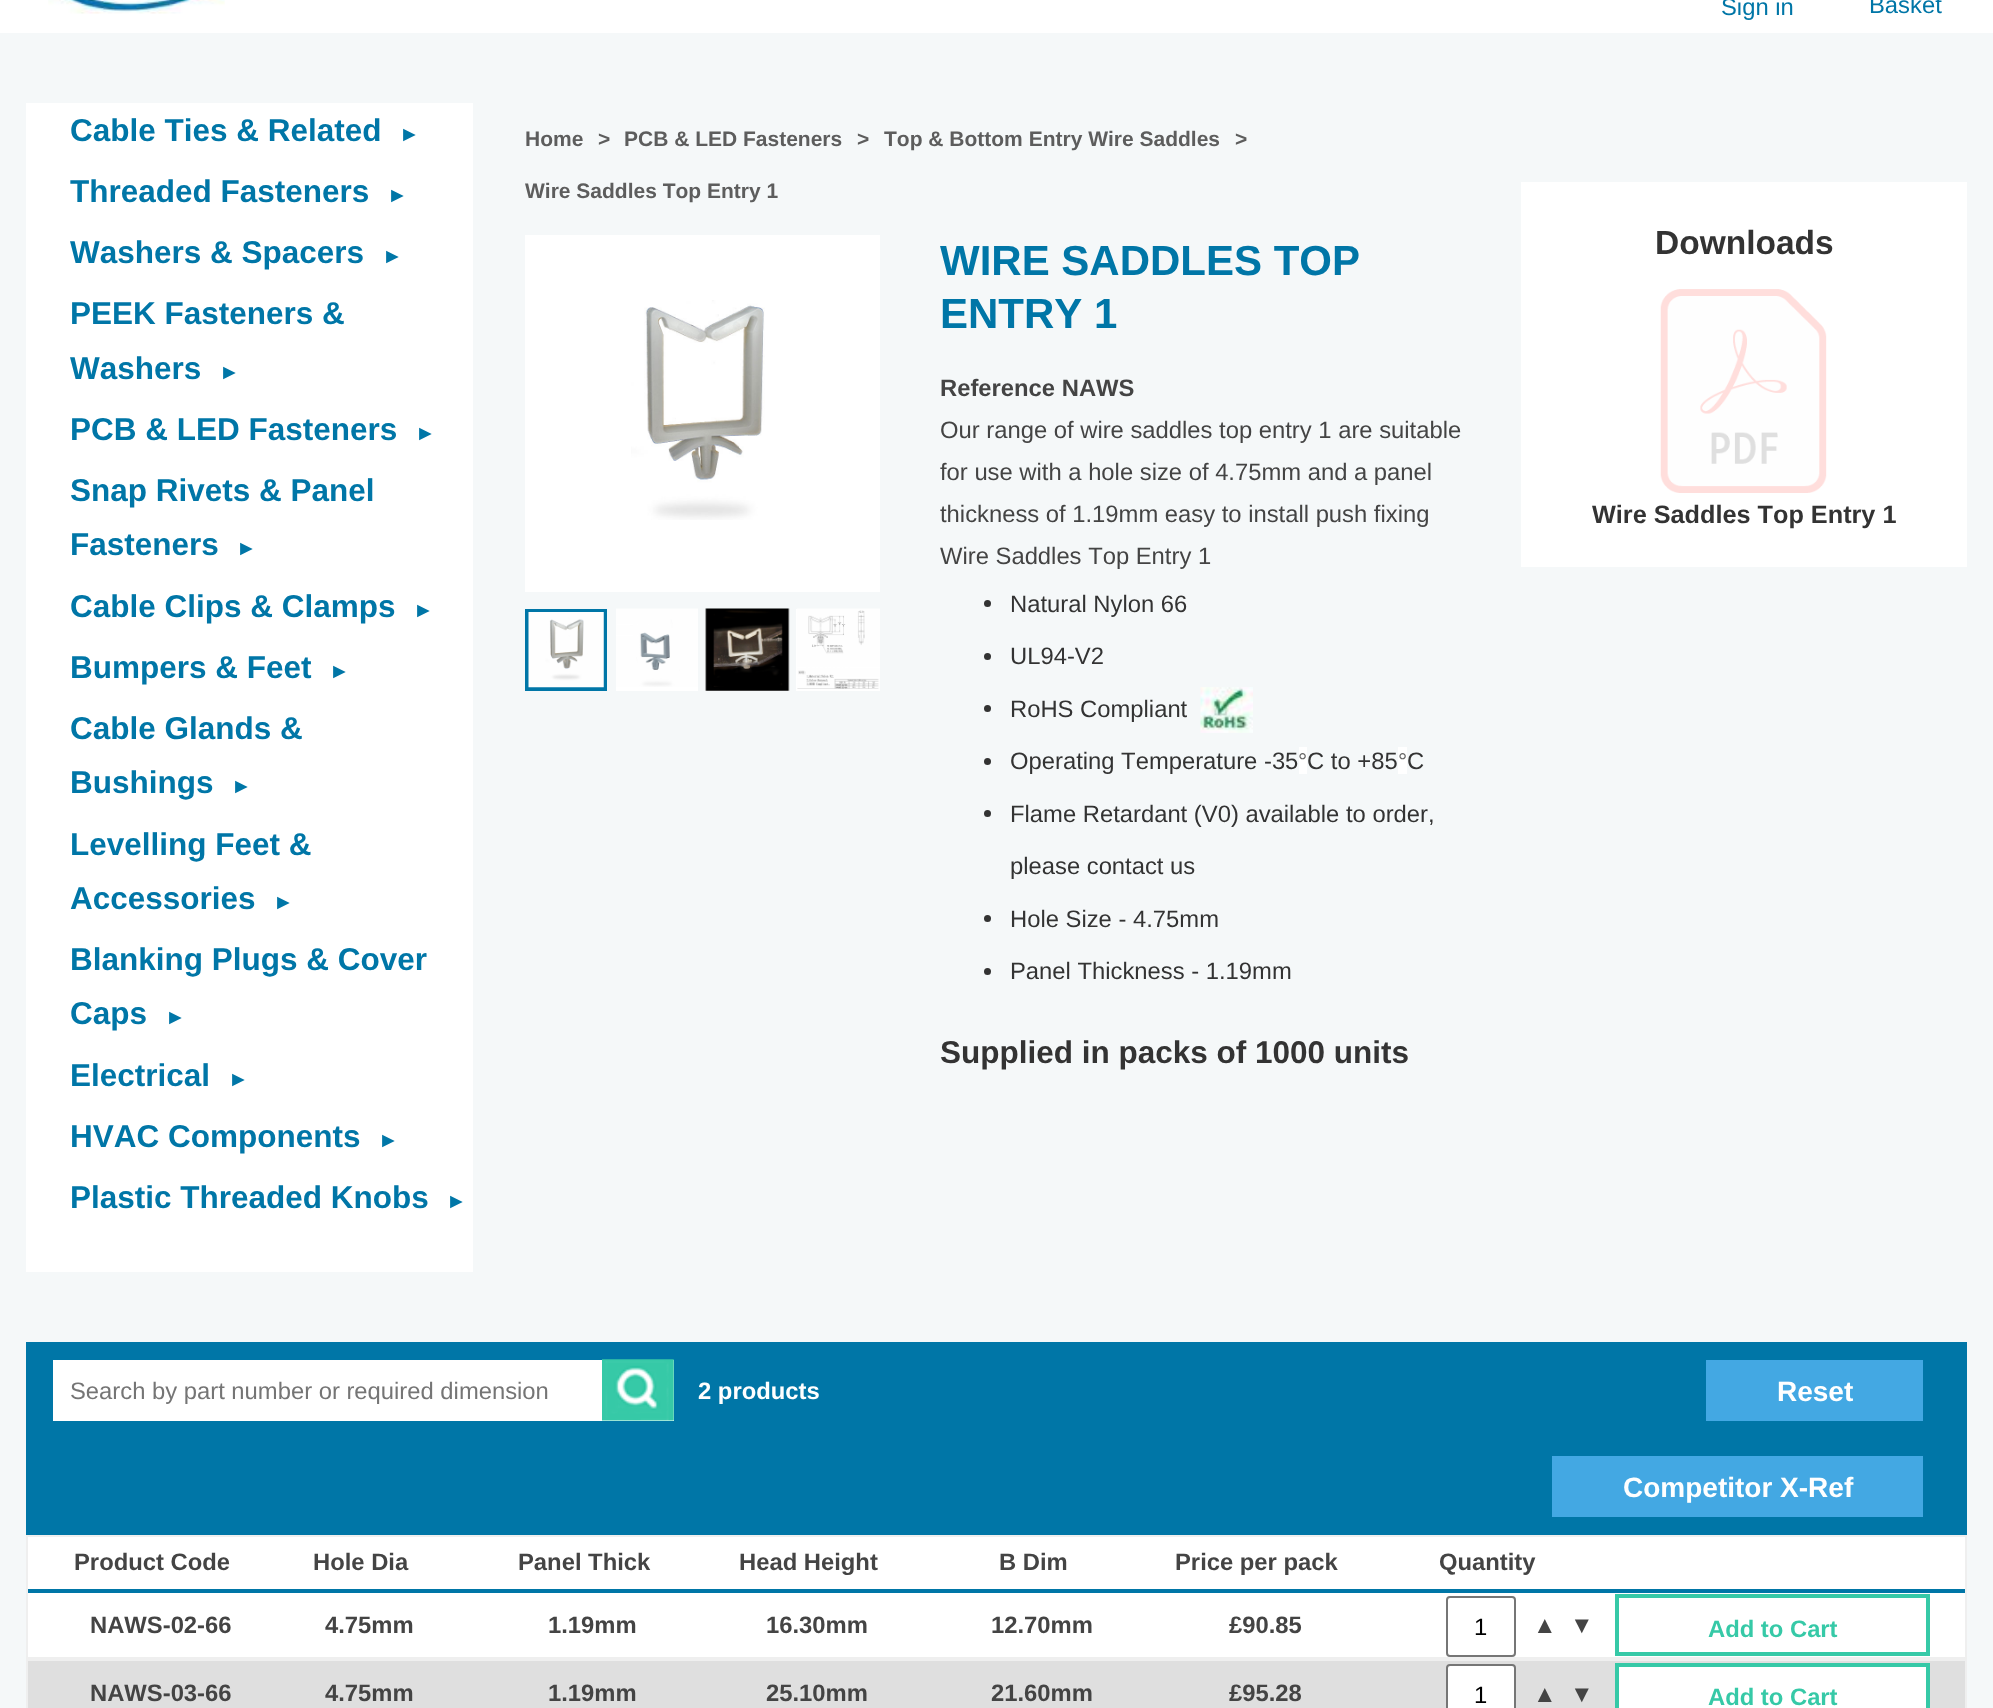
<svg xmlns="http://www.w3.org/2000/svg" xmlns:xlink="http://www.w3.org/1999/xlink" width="1993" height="1708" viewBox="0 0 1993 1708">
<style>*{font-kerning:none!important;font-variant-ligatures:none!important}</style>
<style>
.cls-1{font:23.8px Liberation Sans;fill:#0076a7}
.cls-2{font:bold 31.5px Liberation Sans;fill:#0076a7}
.cls-3{font:bold 21px Liberation Sans;fill:#0076a7}
.cls-4{font:bold 21px Liberation Sans;fill:#5d5d5d}
.cls-5{font:bold 42px Liberation Sans;fill:#0076a7}
.cls-6{font:bold 23.8px Liberation Sans;fill:#444444}
.cls-7{font:23.8px Liberation Sans;fill:#444444}
.cls-8{font:23.8px Liberation Sans;fill:#333333}
.cls-9{font:23px Liberation Sans;fill:#666666}
.cls-10{font:bold 31.5px Liberation Sans;fill:#333333}
.cls-11{font:bold 33.5px Liberation Sans;fill:#333333}
.cls-12{font:bold 25.25px Liberation Sans;fill:#333333}
.cls-13{font:23.8px Liberation Sans;fill:#757575}
.cls-14{font:bold 23.8px Liberation Sans;fill:#ffffff}
.cls-15{font:bold 28px Liberation Sans;fill:#ffffff}
.cls-16{font:23.8px Liberation Sans;fill:#000000}
.cls-17{font:bold 23.8px Liberation Sans;fill:#36c9a7}
</style>
<rect width="100%" height="100%" fill="#f5f8f9"/>
<rect fill="#ffffff" x="0" y="0" width="1993" height="33"/>
<image xlink:href="image0.png" x="48" y="0" width="177" height="14"/>
<rect fill="#ffffff" x="26" y="103" width="447" height="1169"/>
<rect fill="#ffffff" x="525" y="235" width="355" height="357"/>
<image xlink:href="image1.png" x="631" y="300" width="134" height="220"/>
<rect fill="none" stroke="#0076a7" stroke-width="4" x="527" y="611" width="78" height="78"/>
<image xlink:href="image2.png" x="528" y="612" width="76" height="76"/>
<rect fill="#ffffff" x="616" y="687" width="82" height="4"/>
<image xlink:href="image3.png" x="616" y="608" width="82" height="79"/>
<rect fill="#ffffff" x="705" y="609" width="84" height="82"/>
<image xlink:href="image4.png" x="705" y="608" width="85" height="83"/>
<rect fill="#ffffff" x="796" y="609" width="84" height="82"/>
<image xlink:href="image5.png" x="797" y="608" width="83" height="81"/>
<circle fill="#333333" cx="987.5" cy="603.5" r="3.5"/>
<circle fill="#333333" cx="987.5" cy="656.5" r="3.5"/>
<circle fill="#333333" cx="987.5" cy="708.5" r="3.5"/>
<image xlink:href="image6.png" x="1200" y="687" width="53" height="46"/>
<circle fill="#333333" cx="987.5" cy="761.5" r="3.5"/>
<rect fill="#ffffff" x="1299" y="747" width="8" height="27"/>
<rect fill="#ffffff" x="1398" y="747" width="9" height="27"/>
<circle fill="#333333" cx="987.5" cy="813.5" r="3.5"/>
<circle fill="#333333" cx="987.5" cy="918.5" r="3.5"/>
<circle fill="#333333" cx="987.5" cy="971.5" r="3.5"/>
<rect fill="#ffffff" x="1521" y="182" width="446" height="385"/>
<image xlink:href="image7.png" x="1660" y="289" width="167" height="204"/>
<rect fill="#0076a7" x="26" y="1342" width="1941" height="193"/>
<rect fill="#ffffff" x="53" y="1360" width="621" height="61"/>
<image xlink:href="image8.png" x="602" y="1359" width="72" height="62"/>
<rect fill="#43a8e3" x="1706" y="1360" width="217" height="61"/>
<rect fill="#43a8e3" x="1552" y="1456" width="371" height="61"/>
<rect fill="#ffffff" x="28" y="1537" width="1937" height="120"/>
<rect fill="none" stroke="#efefef" stroke-width="2" x="27" y="1536" width="1939" height="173"/>
<rect fill="#0076a7" x="28" y="1589" width="1937" height="4"/>
<rect fill="#efefef" x="28" y="1657" width="1937" height="4"/>
<rect fill="none" stroke="#767676" stroke-width="2" x="1447" y="1597" width="68" height="59" rx="3"/>
<rect fill="none" stroke="#36c9a7" stroke-width="4" x="1617" y="1596" width="311" height="58"/>
<rect fill="#dfdfdf" x="28" y="1661" width="1937" height="47"/>
<rect fill="#ffffff" stroke="#767676" stroke-width="2" x="1447" y="1665" width="68" height="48" rx="3"/>
<rect fill="#ffffff" stroke="#36c9a7" stroke-width="4" x="1617" y="1665" width="311" height="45"/>
<text class="cls-1" x="1721" y="15">Sign in</text>
<text class="cls-1" x="1869" y="13">Basket</text>
<text class="cls-2" x="70" y="141">Cable Ties &amp; Related</text>
<text class="cls-3" x="399" y="141">►</text>
<text class="cls-2" x="70" y="202">Threaded Fasteners</text>
<text class="cls-3" x="387" y="202">►</text>
<text class="cls-2" x="70" y="263">Washers &amp; Spacers</text>
<text class="cls-3" x="382" y="263">►</text>
<text class="cls-2"><tspan x="70" y="324">PEEK Fasteners &amp;</tspan><tspan x="70" y="379">Washers</tspan></text>
<text class="cls-3" x="219" y="379">►</text>
<text class="cls-2" x="70" y="440">PCB &amp; LED Fasteners</text>
<text class="cls-3" x="415" y="440">►</text>
<text class="cls-2"><tspan x="70" y="501">Snap Rivets &amp; Panel</tspan><tspan x="70" y="555">Fasteners</tspan></text>
<text class="cls-3" x="236" y="555">►</text>
<text class="cls-2" x="70" y="617">Cable Clips &amp; Clamps</text>
<text class="cls-3" x="413" y="617">►</text>
<text class="cls-2" x="70" y="678">Bumpers &amp; Feet</text>
<text class="cls-3" x="329" y="678">►</text>
<text class="cls-2"><tspan x="70" y="739">Cable Glands &amp;</tspan><tspan x="70" y="793">Bushings</tspan></text>
<text class="cls-3" x="231" y="793">►</text>
<text class="cls-2"><tspan x="70" y="855">Levelling Feet &amp;</tspan><tspan x="70" y="909">Accessories</tspan></text>
<text class="cls-3" x="273" y="909">►</text>
<text class="cls-2"><tspan x="70" y="970">Blanking Plugs &amp; Cover</tspan><tspan x="70" y="1024">Caps</tspan></text>
<text class="cls-3" x="165" y="1024">►</text>
<text class="cls-2" x="70" y="1086">Electrical</text>
<text class="cls-3" x="228" y="1086">►</text>
<text class="cls-2" x="70" y="1147">HVAC Components</text>
<text class="cls-3" x="378" y="1147">►</text>
<text class="cls-2" x="70" y="1208">Plastic Threaded Knobs</text>
<text class="cls-3" x="446" y="1208">►</text>
<text class="cls-4" x="525" y="146">Home</text>
<text class="cls-4" x="598" y="146">&gt;</text>
<text class="cls-4" x="624" y="146">PCB &amp; LED Fasteners</text>
<text class="cls-4" x="857" y="146">&gt;</text>
<text class="cls-4" x="884" y="146">Top &amp; Bottom Entry Wire Saddles</text>
<text class="cls-4" x="1235" y="146">&gt;</text>
<text class="cls-4" x="525" y="198">Wire Saddles Top Entry 1</text>
<text class="cls-5"><tspan x="940" y="275">WIRE SADDLES TOP</tspan><tspan x="940" y="328">ENTRY 1</tspan></text>
<text class="cls-6" x="940" y="396">Reference NAWS</text>
<text class="cls-7"><tspan x="940" y="438">Our range of wire saddles top entry 1 are suitable</tspan><tspan x="940" y="480">for use with a hole size of 4.75mm and a panel</tspan><tspan x="940" y="522">thickness of 1.19mm easy to install push fixing</tspan><tspan x="940" y="564">Wire Saddles Top Entry 1</tspan></text>
<text class="cls-8" x="1010" y="612">Natural Nylon 66</text>
<text class="cls-8" x="1010" y="664">UL94-V2</text>
<text class="cls-8" x="1010" y="717">RoHS Compliant</text>
<text class="cls-8" x="1010" y="769">Operating Temperature -35</text>
<text class="cls-9" x="1298" y="769">°</text>
<text class="cls-8" x="1307" y="769">C to +85</text>
<text class="cls-9" x="1398" y="769">°</text>
<text class="cls-8" x="1407" y="769">C</text>
<text class="cls-8" x="1010" y="822">Flame Retardant (V0) available to order,</text>
<text class="cls-8" x="1010" y="874">please contact us</text>
<text class="cls-8" x="1010" y="927">Hole Size - 4.75mm</text>
<text class="cls-8" x="1010" y="979">Panel Thickness - 1.19mm</text>
<text class="cls-10" x="940" y="1063">Supplied in packs of 1000 units</text>
<text class="cls-11" x="1655" y="254">Downloads</text>
<text class="cls-12" x="1592" y="523">Wire Saddles Top Entry 1</text>
<text class="cls-13" x="70" y="1399">Search by part number or required dimension</text>
<text class="cls-14" x="698" y="1399">2 products</text>
<text class="cls-15" x="1777" y="1401">Reset</text>
<text class="cls-15" x="1623" y="1497">Competitor X-Ref</text>
<text class="cls-6" x="74" y="1570">Product Code</text>
<text class="cls-6" x="313" y="1570">Hole Dia</text>
<text class="cls-6" x="518" y="1570">Panel Thick</text>
<text class="cls-6" x="739" y="1570">Head Height</text>
<text class="cls-6" x="999" y="1570">B Dim</text>
<text class="cls-6" x="1175" y="1570">Price per pack</text>
<text class="cls-6" x="1439" y="1570">Quantity</text>
<text class="cls-6" x="90" y="1633">NAWS-02-66</text>
<text class="cls-6" x="325" y="1633">4.75mm</text>
<text class="cls-6" x="548" y="1633">1.19mm</text>
<text class="cls-6" x="766" y="1633">16.30mm</text>
<text class="cls-6" x="991" y="1633">12.70mm</text>
<text class="cls-6" x="1229" y="1633">£90.85</text>
<text class="cls-16" x="1474" y="1635">1</text>
<text class="cls-6" x="1533" y="1633">▲︎</text>
<text class="cls-6" x="1570" y="1633">▼︎</text>
<text class="cls-17" x="1708" y="1637">Add to Cart</text>
<text class="cls-6" x="90" y="1701">NAWS-03-66</text>
<text class="cls-6" x="325" y="1701">4.75mm</text>
<text class="cls-6" x="548" y="1701">1.19mm</text>
<text class="cls-6" x="766" y="1701">25.10mm</text>
<text class="cls-6" x="991" y="1701">21.60mm</text>
<text class="cls-6" x="1229" y="1701">£95.28</text>
<text class="cls-16" x="1474" y="1703">1</text>
<text class="cls-6" x="1533" y="1702">▲︎</text>
<text class="cls-6" x="1570" y="1702">▼︎</text>
<text class="cls-17" x="1708" y="1705">Add to Cart</text>
</svg>
